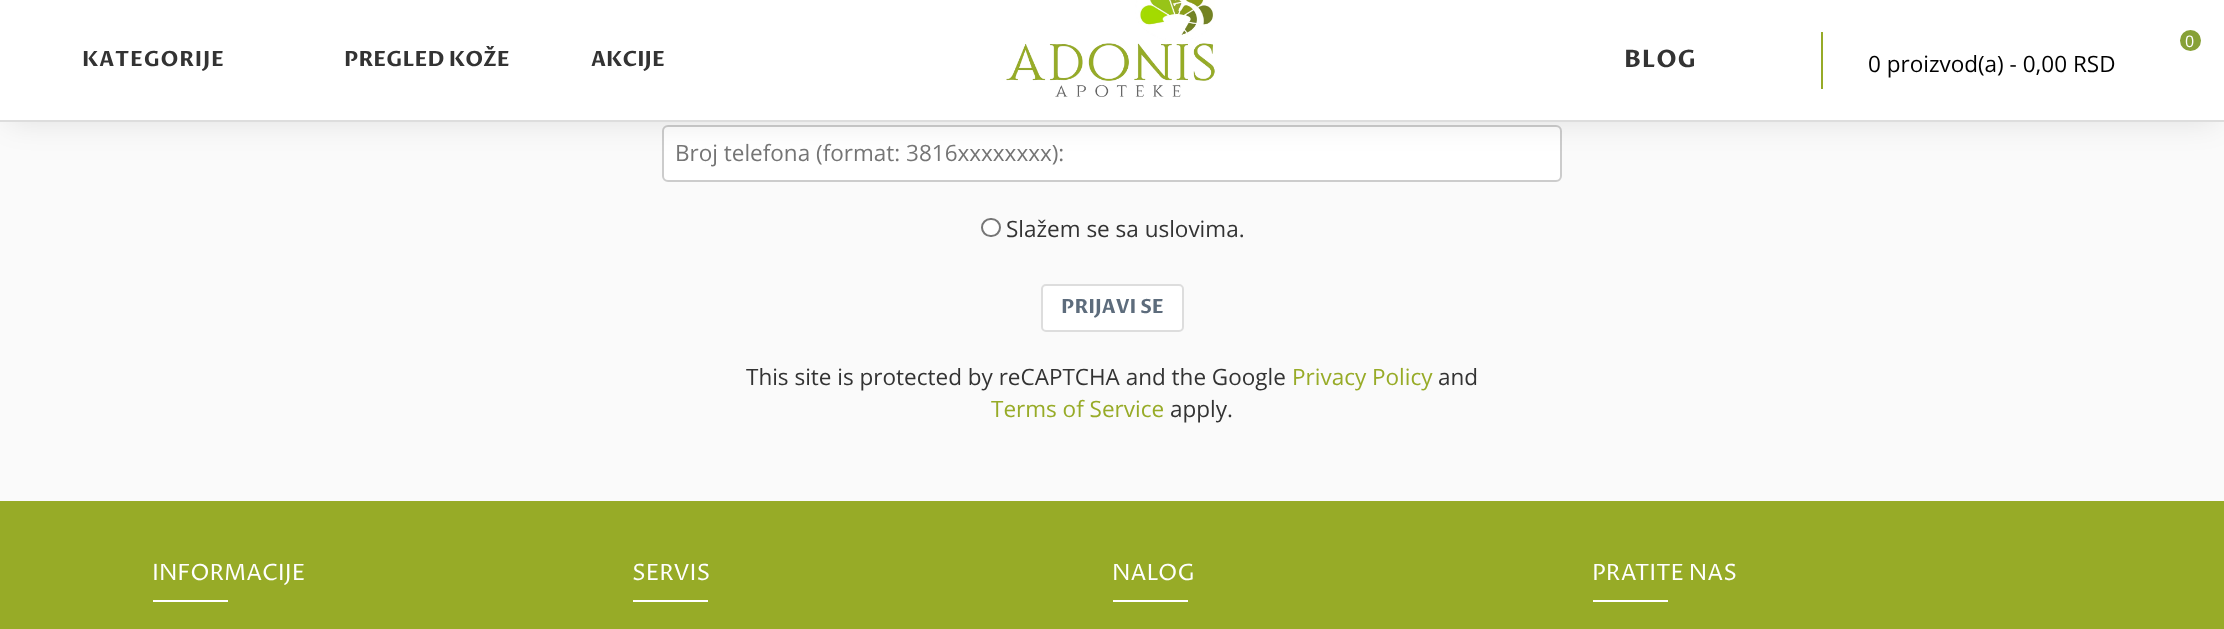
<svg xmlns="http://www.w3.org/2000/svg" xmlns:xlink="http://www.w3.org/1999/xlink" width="2224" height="629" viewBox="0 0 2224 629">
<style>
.cls-1{font:bold 21px Proza Libre;letter-spacing:0.75px;fill:#333333}
.cls-2{font:bold 21px Proza Libre;fill:#333333}
.cls-3{font:bold 24px Proza Libre;letter-spacing:0.75px;fill:#333333}
.cls-4{font:16px Open Sans;fill:#ffffff}
.cls-5{font:22.5px Open Sans;fill:#000000}
.cls-6{font:22.5px Open Sans;fill:#757575}
.cls-7{font:22.5px Open Sans;fill:#333333}
.cls-8{font:bold 19.5px Proza Libre;fill:#5d6c7c}
.cls-9{font:22.5px Open Sans;fill:#97ab27}
.cls-10{font:22.5px Proza Libre;fill:#ffffff}
</style>
<rect width="100%" height="100%" fill="#fafafa"/>
<rect fill="#ffffff" stroke="#cccccc" stroke-width="2" x="663" y="126" width="898" height="55" rx="5"/>
<rect fill="#000000" fill-opacity="0.1" filter="blur(15px)" x="8" y="-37" width="2209" height="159"/>
<rect fill="#ffffff" x="0" y="0" width="2224" height="120"/>
<rect fill="#dddddd" x="0" y="120" width="2224" height="2"/>
<image xlink:href="image0.png" x="1006" y="0" width="209" height="97"/>
<rect fill="#97ab27" x="1821" y="32" width="2" height="57"/>
<circle fill="#87a136" stroke="#ffffff" stroke-width="3" cx="2190.5" cy="40.5" r="12"/>
<rect fill="#ffffff" stroke="#767676" stroke-width="2" x="982" y="219" width="18" height="17" rx="8.5"/>
<rect fill="#ffffff" stroke="#dddddd" stroke-width="2" x="1042" y="285" width="141" height="46" rx="4"/>
<rect fill="#97ab27" x="0" y="501" width="2224" height="128"/>
<rect fill="#ffffff" x="153" y="600" width="75" height="2"/>
<rect fill="#ffffff" x="633" y="600" width="75" height="2"/>
<rect fill="#ffffff" x="1113" y="600" width="75" height="2"/>
<rect fill="#ffffff" x="1593" y="600" width="75" height="2"/>
<text class="cls-1" x="82" y="66">KATEGORIJE</text>
<text class="cls-2" x="344" y="66">PREGLED KOŽE</text>
<text class="cls-2" x="591" y="66">AKCIJE</text>
<text class="cls-3" x="1624" y="67">BLOG</text>
<text class="cls-4" x="2185" y="47">0</text>
<text class="cls-5" x="1868" y="72">0 proizvod(a) - 0,00 RSD</text>
<text class="cls-6" x="675" y="161">Broj telefona (format: 3816xxxxxxxx):</text>
<text class="cls-7" x="1006" y="237">Slažem se sa uslovima.</text>
<text class="cls-8" x="1061" y="313">PRIJAVI SE</text>
<text class="cls-7" x="746" y="385">This site is protected by reCAPTCHA and the Google</text>
<text class="cls-9" x="1292" y="385">Privacy Policy</text>
<text class="cls-7" x="1438" y="385">and</text>
<text class="cls-9" x="991" y="417">Terms of Service</text>
<text class="cls-7" x="1170" y="417">apply.</text>
<text class="cls-10" x="152" y="580">INFORMACIJE</text>
<text class="cls-10" x="632" y="580">SERVIS</text>
<text class="cls-10" x="1112" y="580">NALOG</text>
<text class="cls-10" x="1592" y="580">PRATITE NAS</text>
</svg>
